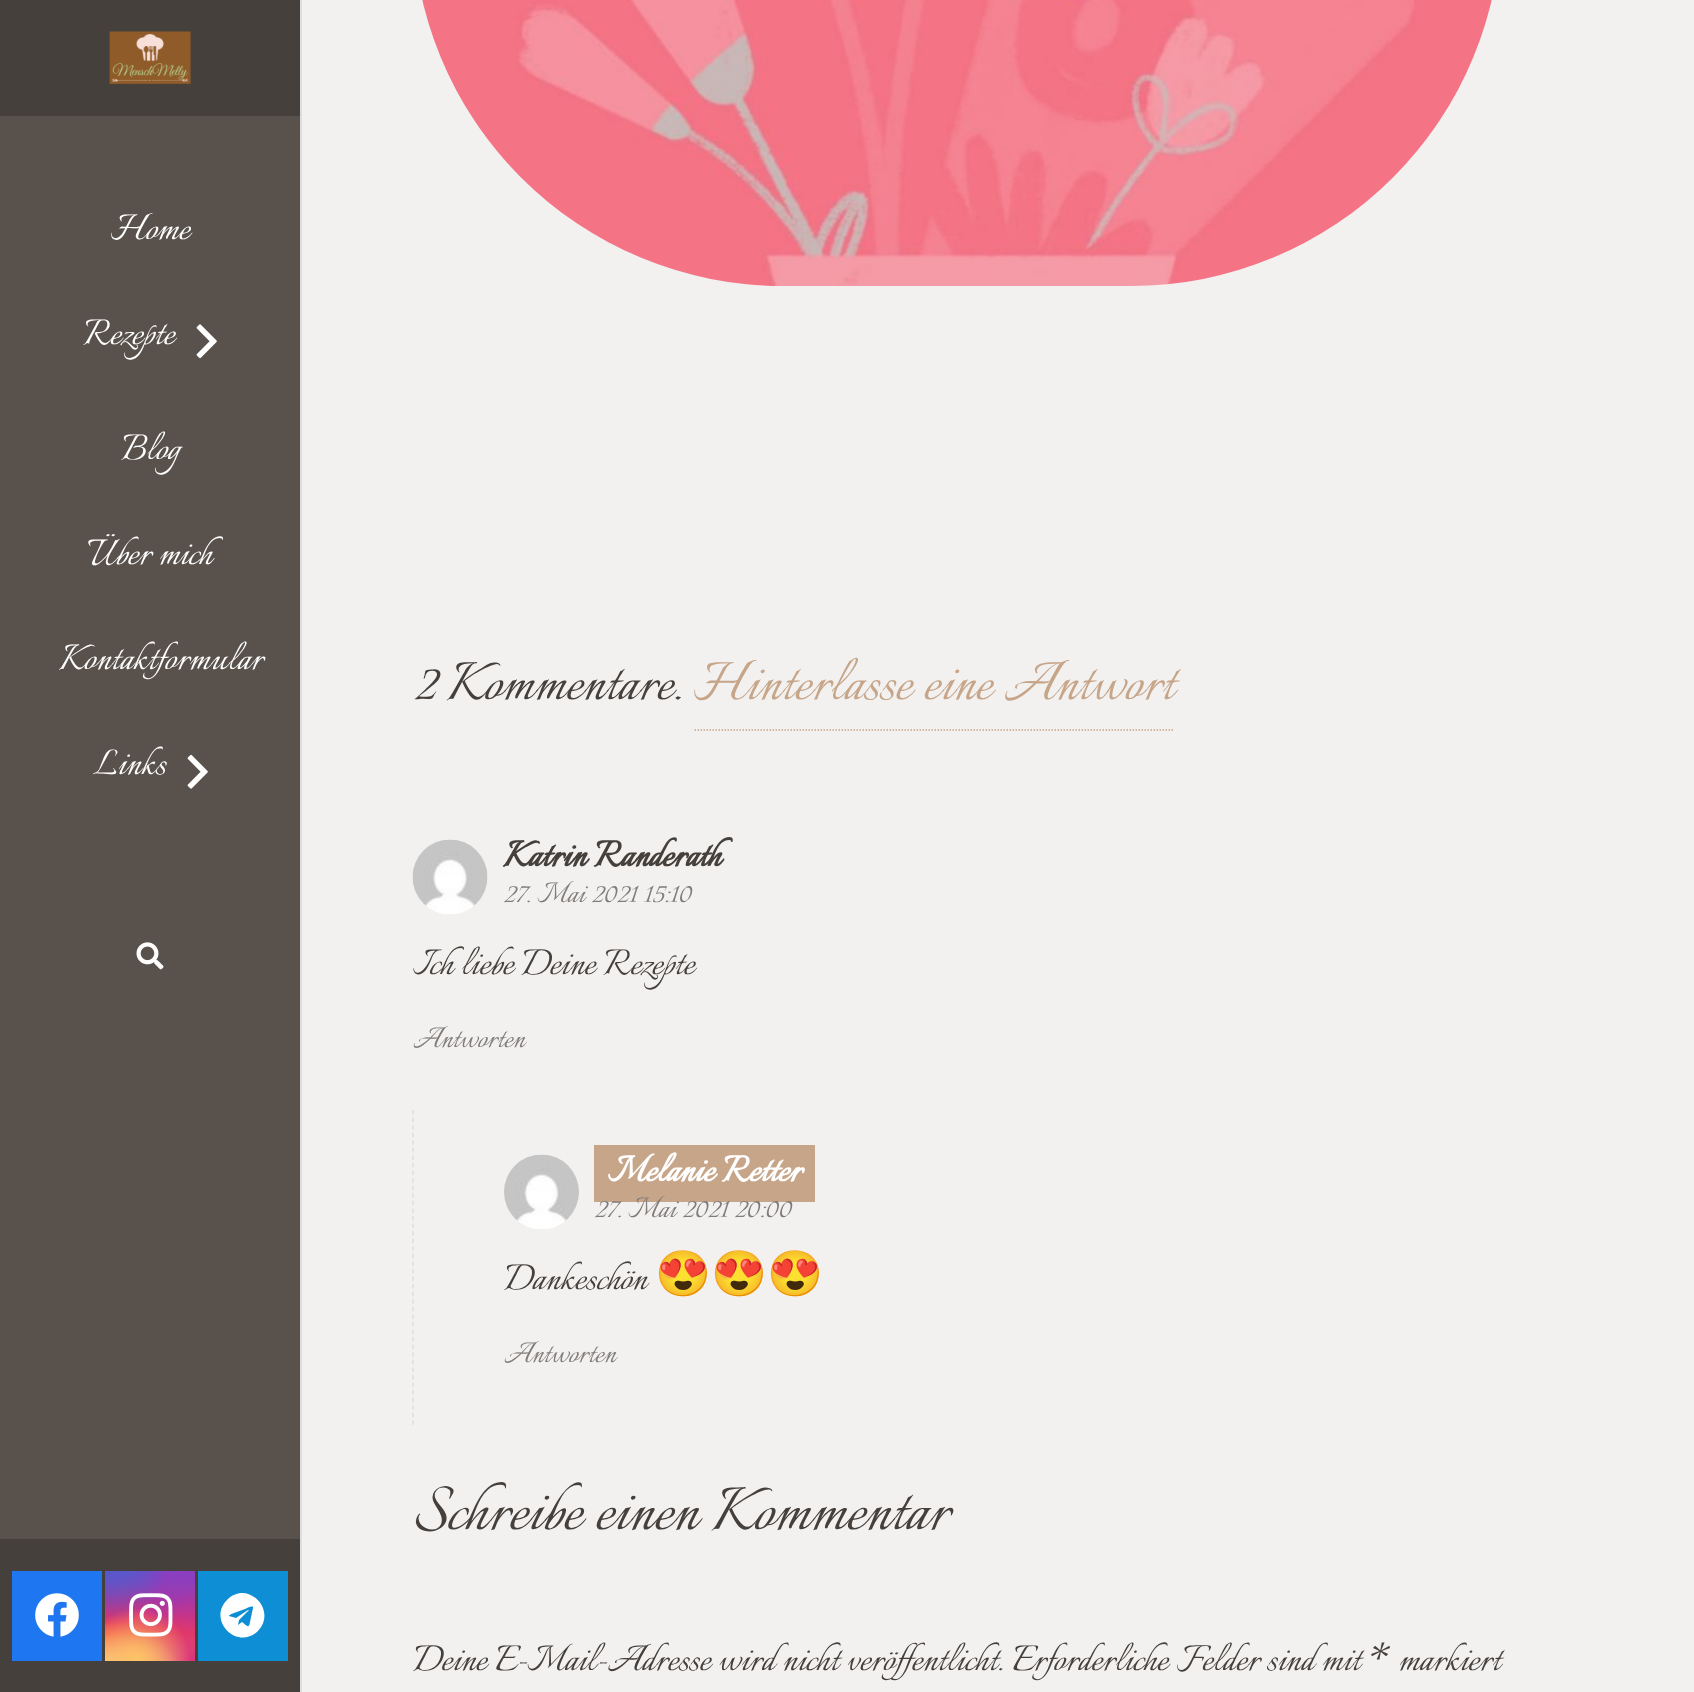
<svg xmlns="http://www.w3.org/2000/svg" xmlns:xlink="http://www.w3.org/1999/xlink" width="1694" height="1692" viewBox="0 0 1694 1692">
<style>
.cls-1{font:45px Italianno;fill:#ffffff}
.cls-2{font:67.5px Italianno;fill:#46403c}
.cls-3{font:67.5px Italianno;fill:#c7a589}
.cls-4{font:bold 45px Italianno;fill:#46403c}
.cls-5{font:36px Italianno;fill:#807c79}
.cls-6{font:45px Italianno;fill:#46403c}
.cls-7{font:bold 45px Italianno;fill:#ffffff}
.cls-8{font:45px Noto Color Emoji;fill:#46403c}
.cls-9{font:76.5px Italianno;fill:#46403c}
</style>
<defs>
<linearGradient id="g1" gradientUnits="userSpaceOnUse" x1="150" y1="1571" x2="150" y2="1661"><stop offset="0" stop-color="#6559ca"/><stop offset="0.3" stop-color="#bc318f"/><stop offset="0.5" stop-color="#e42e66"/><stop offset="0.7" stop-color="#fa5332"/><stop offset="1" stop-color="#ffdc80"/></linearGradient>
<radialGradient id="g2" gradientUnits="userSpaceOnUse" cx="195" cy="1661" r="127"><stop offset="0" stop-color="#d9317a"/><stop offset="1" stop-color="#d9317a" stop-opacity="0"/></radialGradient>
<radialGradient id="g3" gradientUnits="userSpaceOnUse" cx="0" cy="0" r="1" gradientTransform="matrix(76 0 0 153 159 1553)"><stop offset="0" stop-color="#893dc2"/><stop offset="0.5" stop-color="#893dc2" stop-opacity="0"/></radialGradient>
<radialGradient id="g4" gradientUnits="userSpaceOnUse" cx="195" cy="1571" r="127"><stop offset="0" stop-color="#893dc2"/><stop offset="0.5" stop-color="#893dc2" stop-opacity="0"/></radialGradient>
<radialGradient id="g5" gradientUnits="userSpaceOnUse" cx="0" cy="0" r="1" gradientTransform="matrix(102 0 0 191 123 1526)"><stop offset="0" stop-color="#5258cf"/><stop offset="0.5" stop-color="#5258cf" stop-opacity="0"/></radialGradient>
<radialGradient id="g6" gradientUnits="userSpaceOnUse" cx="0" cy="0" r="1" gradientTransform="matrix(127 0 0 159 105 1548)"><stop offset="0" stop-color="#5258cf"/><stop offset="0.5" stop-color="#5258cf" stop-opacity="0"/></radialGradient>
<radialGradient id="g7" gradientUnits="userSpaceOnUse" cx="114" cy="1697" r="150"><stop offset="0" stop-color="#feda7e"/><stop offset="0.5" stop-color="#feda7e" stop-opacity="0"/></radialGradient>
<radialGradient id="g8" gradientUnits="userSpaceOnUse" cx="137" cy="1661" r="107"><stop offset="0" stop-color="#fec564"/><stop offset="0.5" stop-color="#fec564" stop-opacity="0"/></radialGradient>
</defs>
<rect width="100%" height="100%" fill="#59524c"/>
<rect fill="#f2f1f0" x="302" y="0" width="1392" height="1692"/>
<rect fill="#dfdedd" x="300" y="0" width="2" height="1692"/>
<rect fill="#46403c" x="0" y="0" width="300" height="116"/>
<image xlink:href="image0.png" x="109" y="31" width="82" height="53"/>
<image xlink:href="image1.png" x="196" y="324" width="21" height="35"/>
<image xlink:href="image2.png" x="187" y="754" width="21" height="35"/>
<image xlink:href="image3.png" x="136" y="942" width="28" height="28"/>
<rect fill="#46403c" x="0" y="1539" width="300" height="153"/>
<rect fill="#1e77f0" x="12" y="1571" width="90" height="90"/>
<image xlink:href="image4.png" x="35" y="1593" width="44" height="44"/>
<rect fill="url(#g1)" x="105" y="1571" width="90" height="90"/>
<rect fill="url(#g2)" x="105" y="1571" width="90" height="90"/>
<rect fill="url(#g3)" x="127" y="1571" width="65" height="57"/>
<rect fill="url(#g4)" x="139" y="1571" width="56" height="62"/>
<rect fill="url(#g5)" x="105" y="1571" width="60" height="48"/>
<rect fill="url(#g6)" x="105" y="1571" width="57" height="55"/>
<rect fill="url(#g7)" x="105" y="1624" width="73" height="37"/>
<rect fill="url(#g8)" x="105" y="1609" width="84" height="52"/>
<image xlink:href="image5.png" x="129" y="1593" width="44" height="44"/>
<rect fill="#0e8ed4" x="198" y="1571" width="90" height="90"/>
<path fill="#ffffff" d="M227 1600C247 1579 278 1610 258 1631C237 1651 207 1620 227 1600ZM253 1608C254 1604 245 1609 245 1609L234 1613C231 1614 229 1615 229 1616L236 1618L248 1610H249L239 1620L238 1625L242 1622C247 1626 249 1629 250 1622Z"/>
<image xlink:href="image6.png" x="422" y="0" width="1070" height="286"/>
<path fill="none" stroke="#c7a589" stroke-width="1.5" stroke-dasharray="1.5 1.5" d="M694.5 730H1174.5"/>
<image xlink:href="image7.png" x="412" y="839" width="76" height="75"/>
<path fill="none" stroke="#e0dedc" stroke-width="1.5" stroke-dasharray="4.5 3.07" d="M413 1110V1425"/>
<image xlink:href="image8.png" x="504" y="1154" width="75" height="75"/>
<rect fill="#c7a589" x="594" y="1145" width="221" height="57"/>
<text class="cls-1" x="111" y="239">Home</text>
<text class="cls-1" x="83" y="344">Rezepte</text>
<text class="cls-1" x="121" y="459">Blog</text>
<text class="cls-1" x="88" y="564">Über mich</text>
<text class="cls-1" x="59" y="669">Kontaktformular</text>
<text class="cls-1" x="93" y="774">Links</text>
<text class="cls-2" x="413" y="699">2 Kommentare.</text>
<text class="cls-3" x="694" y="699">Hinterlasse eine Antwort</text>
<text class="cls-4" x="503" y="866">Katrin Randerath</text>
<text class="cls-5" x="503" y="902">27. Mai 2021 15:10</text>
<text class="cls-6" x="413" y="974">Ich liebe Deine Rezepte</text>
<text class="cls-5" x="413" y="1047">Antworten</text>
<text class="cls-7" x="608" y="1181">Melanie Retter</text>
<text class="cls-5" x="594" y="1217">27. Mai 2021 20:00</text>
<text class="cls-6" x="504" y="1289">Dankeschön</text>
<text class="cls-8" x="655" y="1289">😍😍😍</text>
<text class="cls-5" x="504" y="1362">Antworten</text>
<text class="cls-9" x="413" y="1529">Schreibe einen Kommentar</text>
<text class="cls-6" x="413" y="1670">Deine E-Mail-Adresse wird nicht veröffentlicht. Erforderliche Felder sind mit * markiert</text>
</svg>
